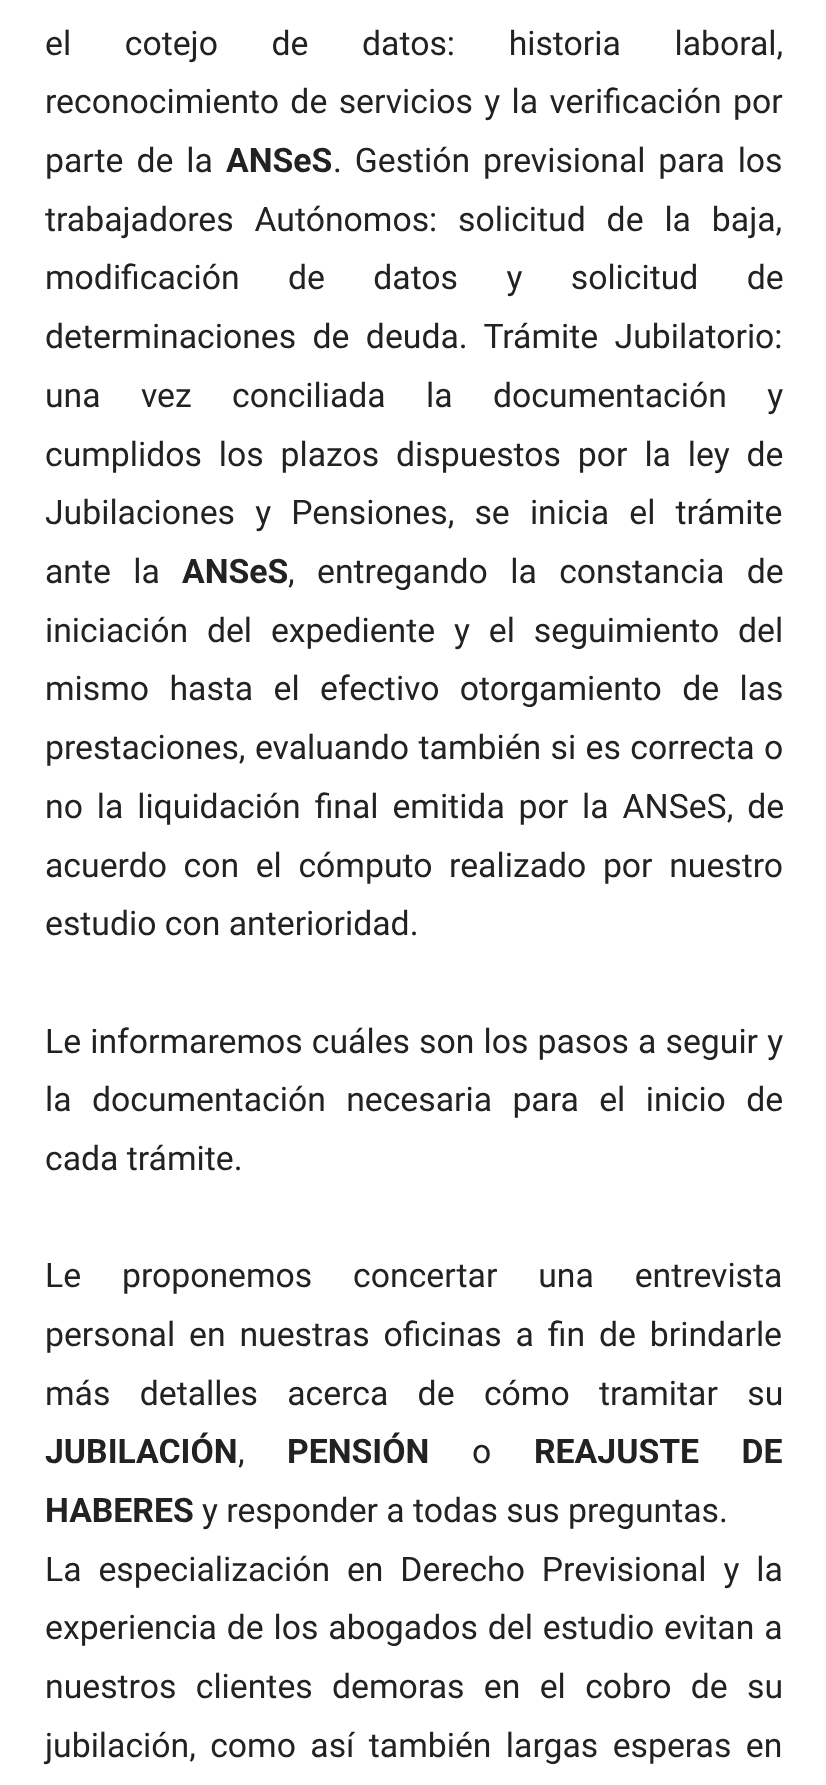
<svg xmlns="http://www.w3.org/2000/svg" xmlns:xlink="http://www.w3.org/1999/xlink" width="826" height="1785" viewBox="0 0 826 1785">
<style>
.cls-1{font:33.75px Roboto;fill:#222222}
.cls-2{font:bold 33.75px Roboto;fill:#222222}
</style>
<rect width="100%" height="100%" fill="#ffffff"/>
<text class="cls-1"><tspan x="45" y="55" word-spacing="45.25">el cotejo de datos: historia laboral,</tspan><tspan x="45" y="113" word-spacing="3">reconocimiento de servicios y la verificación por</tspan><tspan x="45" y="172" word-spacing="4.5">parte de la</tspan></text>
<text class="cls-2" x="226" y="172">ANSeS</text>
<text class="cls-1" x="333" y="172" word-spacing="4.5">. Gestión previsional para los</text>
<text class="cls-1"><tspan x="45" y="231" word-spacing="12.5">trabajadores Autónomos: solicitud de la baja,</tspan><tspan x="45" y="289" word-spacing="40">modificación de datos y solicitud de</tspan><tspan x="45" y="348" word-spacing="8">determinaciones de deuda. Trámite Jubilatorio:</tspan><tspan x="45" y="407" word-spacing="32">una vez conciliada la documentación y</tspan><tspan x="45" y="466" word-spacing="8.5">cumplidos los plazos dispuestos por la ley de</tspan><tspan x="45" y="524" word-spacing="11.75">Jubilaciones y Pensiones, se inicia el trámite</tspan><tspan x="45" y="583" word-spacing="14">ante la</tspan></text>
<text class="cls-2" x="182" y="583">ANSeS</text>
<text class="cls-1" x="288" y="583" word-spacing="14">, entregando la constancia de</text>
<text class="cls-1"><tspan x="45" y="642" word-spacing="10.5">iniciación del expediente y el seguimiento del</tspan><tspan x="45" y="700" word-spacing="12">mismo hasta el efectivo otorgamiento de las</tspan><tspan x="45" y="759" word-spacing="1">prestaciones, evaluando también si es correcta o</tspan><tspan x="45" y="818" word-spacing="5.5">no la liquidación final emitida por la ANSeS, de</tspan><tspan x="45" y="877" word-spacing="8.25">acuerdo con el cómputo realizado por nuestro</tspan><tspan x="45" y="935">estudio con anterioridad.</tspan></text>
<text class="cls-1"><tspan x="45" y="1053" word-spacing="0.75">Le informaremos cuáles son los pasos a seguir y</tspan><tspan x="45" y="1111" word-spacing="12">la documentación necesaria para el inicio de</tspan><tspan x="45" y="1170">cada trámite.</tspan></text>
<text class="cls-1"><tspan x="45" y="1287" word-spacing="32.5">Le proponemos concertar una entrevista</tspan><tspan x="45" y="1346" word-spacing="5.5">personal en nuestras oficinas a fin de brindarle</tspan><tspan x="45" y="1405" word-spacing="21">más detalles acerca de cómo tramitar su</tspan></text>
<text class="cls-2" x="45" y="1463">JUBILACIÓN</text>
<text class="cls-1" x="238" y="1463">,</text>
<text class="cls-2" x="287" y="1463">PENSIÓN</text>
<text class="cls-1" x="472" y="1463">o</text>
<text class="cls-2" x="534" y="1463" word-spacing="34">REAJUSTE DE</text>
<text class="cls-2" x="45" y="1522">HABERES</text>
<text class="cls-1" x="202" y="1522">y responder a todas sus preguntas.</text>
<text class="cls-1"><tspan x="45" y="1581" word-spacing="8.5">La especialización en Derecho Previsional y la</tspan><tspan x="45" y="1639" word-spacing="1.5">experiencia de los abogados del estudio evitan a</tspan><tspan x="45" y="1698" word-spacing="11">nuestros clientes demoras en el cobro de su</tspan><tspan x="45" y="1757" word-spacing="6">jubilación, como así también largas esperas en</tspan></text>
</svg>
